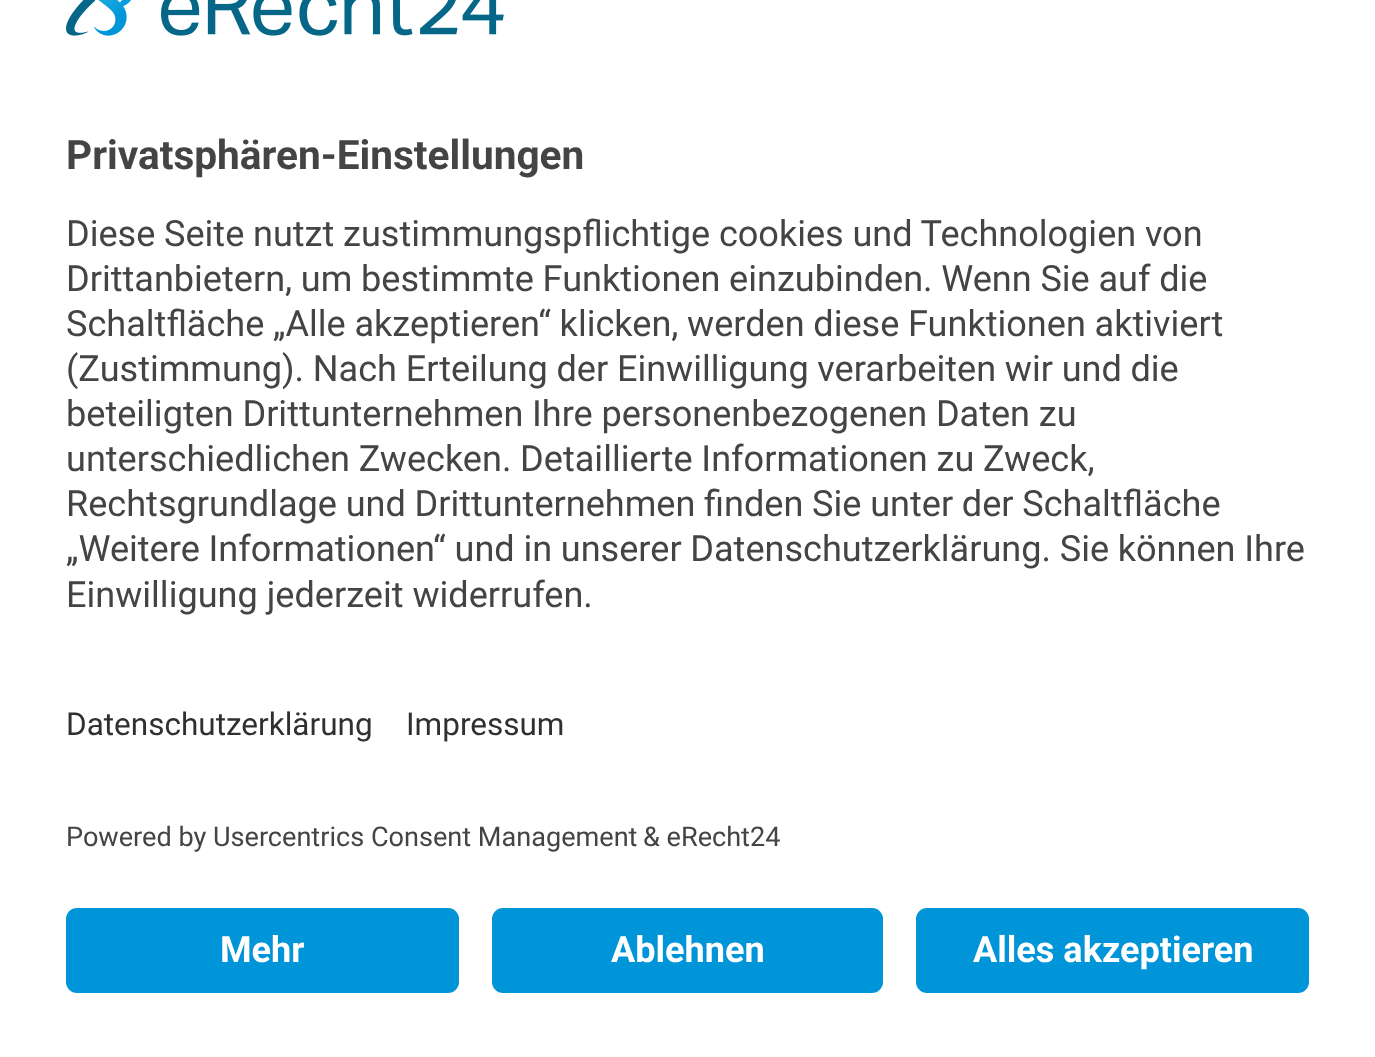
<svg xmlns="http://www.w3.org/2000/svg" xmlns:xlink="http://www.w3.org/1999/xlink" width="1375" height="1057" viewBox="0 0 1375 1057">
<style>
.cls-1{font:bold 40.6px Roboto;fill:#444444}
.cls-2{font:36.1px Roboto;fill:#444444}
.cls-3{font:31.5px Roboto;fill:#303030}
.cls-4{font:27.1px Roboto;fill:#444444}
.cls-5{font:bold 36.1px Roboto;fill:#ffffff}
</style>
<rect width="100%" height="100%" fill="#ffffff"/>
<image xlink:href="image0.png" x="66" y="0" width="438" height="36"/>
<rect fill="#0094d8" x="66" y="908" width="393" height="85" rx="11"/>
<rect fill="#0094d8" x="492" y="908" width="391" height="85" rx="11"/>
<rect fill="#0094d8" x="916" y="908" width="393" height="85" rx="11"/>
<text class="cls-1" x="66" y="169">Privatsphären-Einstellungen</text>
<text class="cls-2"><tspan x="66" y="246" word-spacing="-0.25">Diese Seite nutzt zustimmungspflichtige cookies und Technologien von</tspan><tspan x="66" y="291" word-spacing="-0.25">Drittanbietern, um bestimmte Funktionen einzubinden. Wenn Sie auf die</tspan><tspan x="66" y="336" word-spacing="-0.25">Schaltfläche „Alle akzeptieren“ klicken, werden diese Funktionen aktiviert</tspan><tspan x="66" y="381" word-spacing="-0.25">(Zustimmung). Nach Erteilung der Einwilligung verarbeiten wir und die</tspan><tspan x="66" y="426" word-spacing="-0.25">beteiligten Drittunternehmen Ihre personenbezogenen Daten zu</tspan><tspan x="66" y="471" word-spacing="-0.25">unterschiedlichen Zwecken. Detaillierte Informationen zu Zweck,</tspan><tspan x="66" y="516" word-spacing="-0.25">Rechtsgrundlage und Drittunternehmen finden Sie unter der Schaltfläche</tspan><tspan x="66" y="561" word-spacing="-0.25">„Weitere Informationen“ und in unserer Datenschutzerklärung. Sie können Ihre</tspan><tspan x="66" y="607">Einwilligung jederzeit widerrufen.</tspan></text>
<text class="cls-3" x="66" y="735">Datenschutzerklärung</text>
<text class="cls-3" x="406" y="735">Impressum</text>
<text class="cls-4" x="66" y="846">Powered by Usercentrics Consent Management</text>
<text class="cls-4" x="643" y="846">&amp; eRecht24</text>
<text class="cls-5" x="220" y="962">Mehr</text>
<text class="cls-5" x="611" y="962">Ablehnen</text>
<text class="cls-5" x="973" y="962">Alles akzeptieren</text>
</svg>
